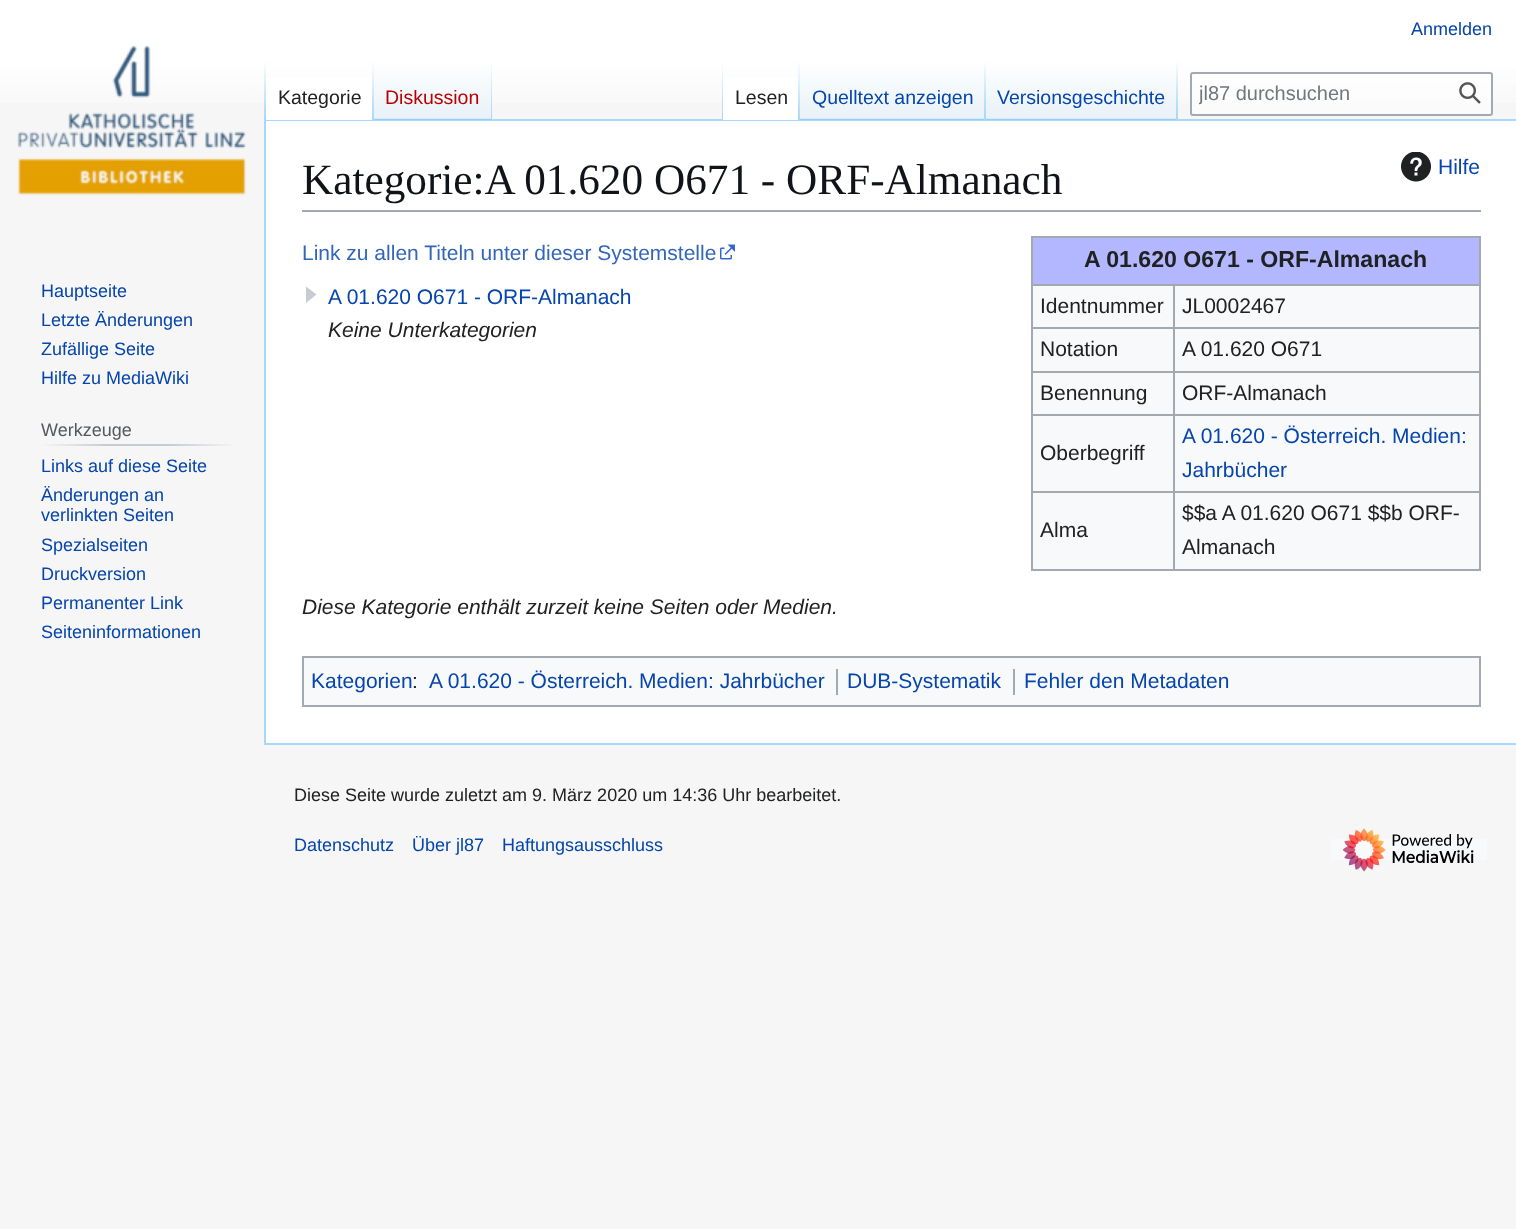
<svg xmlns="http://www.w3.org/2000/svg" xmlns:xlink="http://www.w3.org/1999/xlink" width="1516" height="1229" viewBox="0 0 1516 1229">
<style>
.cls-1{font:18px Liberation Sans;fill:#0645ad}
.cls-2{font:19.5px Liberation Sans;fill:#202122}
.cls-3{font:19.5px Liberation Sans;fill:#ba0000}
.cls-4{font:19.5px Liberation Sans;fill:#0645ad}
.cls-5{font:20px Liberation Sans;fill:#72777d}
.cls-6{font:18px Liberation Sans;fill:#54595d}
.cls-7{font:43.25px Liberation Serif;fill:#101418}
.cls-8{font:21px Liberation Sans;fill:#0645ad}
.cls-9{font:21px Liberation Sans;fill:#3366bb}
.cls-10{font:bold 23.1px Liberation Sans;fill:#202122}
.cls-11{font:21px Liberation Sans;fill:#202122}
.cls-12{font:italic 21px Liberation Sans;fill:#202122}
.cls-13{font:18px Liberation Sans;fill:#202122}
</style>
<defs>
<linearGradient id="g1" gradientUnits="userSpaceOnUse" x1="758" y1="0" x2="758" y2="120"><stop offset="0.5" stop-color="#ffffff"/><stop offset="1" stop-color="#f6f6f6"/></linearGradient>
<linearGradient id="g2" gradientUnits="userSpaceOnUse" x1="265" y1="60" x2="265" y2="120"><stop offset="0" stop-color="#a7d7f9" stop-opacity="0"/><stop offset="1" stop-color="#a7d7f9"/></linearGradient>
<linearGradient id="g3" gradientUnits="userSpaceOnUse" x1="373" y1="60" x2="373" y2="120"><stop offset="0" stop-color="#ffffff"/><stop offset="1" stop-color="#a7d7f9"/></linearGradient>
<linearGradient id="g4" gradientUnits="userSpaceOnUse" x1="433" y1="120" x2="433" y2="60"><stop offset="0" stop-color="#77c1f6"/><stop offset="0.03" stop-color="#e8f2f8"/><stop offset="1" stop-color="#ffffff"/></linearGradient>
<linearGradient id="g5" gradientUnits="userSpaceOnUse" x1="491" y1="60" x2="491" y2="120"><stop offset="0" stop-color="#a7d7f9" stop-opacity="0"/><stop offset="1" stop-color="#a7d7f9"/></linearGradient>
<linearGradient id="g6" gradientUnits="userSpaceOnUse" x1="722" y1="60" x2="722" y2="120"><stop offset="0" stop-color="#a7d7f9" stop-opacity="0"/><stop offset="1" stop-color="#a7d7f9"/></linearGradient>
<linearGradient id="g7" gradientUnits="userSpaceOnUse" x1="799" y1="60" x2="799" y2="120"><stop offset="0" stop-color="#ffffff"/><stop offset="1" stop-color="#a7d7f9"/></linearGradient>
<linearGradient id="g8" gradientUnits="userSpaceOnUse" x1="893" y1="120" x2="893" y2="60"><stop offset="0" stop-color="#77c1f6"/><stop offset="0.03" stop-color="#e8f2f8"/><stop offset="1" stop-color="#ffffff"/></linearGradient>
<linearGradient id="g9" gradientUnits="userSpaceOnUse" x1="985" y1="60" x2="985" y2="120"><stop offset="0" stop-color="#a7d7f9" stop-opacity="0"/><stop offset="1" stop-color="#a7d7f9"/></linearGradient>
<linearGradient id="g10" gradientUnits="userSpaceOnUse" x1="1082" y1="120" x2="1082" y2="60"><stop offset="0" stop-color="#77c1f6"/><stop offset="0.03" stop-color="#e8f2f8"/><stop offset="1" stop-color="#ffffff"/></linearGradient>
<linearGradient id="g11" gradientUnits="userSpaceOnUse" x1="1177" y1="60" x2="1177" y2="120"><stop offset="0" stop-color="#a7d7f9" stop-opacity="0"/><stop offset="1" stop-color="#a7d7f9"/></linearGradient>
<linearGradient id="g12" gradientUnits="userSpaceOnUse" x1="41" y1="445" x2="237" y2="445"><stop offset="0" stop-color="#f6f6f6"/><stop offset="0.33" stop-color="#c8ccd1"/><stop offset="0.66" stop-color="#c8ccd1"/><stop offset="1" stop-color="#f6f6f6"/></linearGradient>
<clipPath id="clip1"><rect x="1199" y="83" width="249" height="22"/></clipPath>
</defs>
<rect width="100%" height="100%" fill="#f6f6f6"/>
<rect fill="url(#g1)" x="0" y="0" width="1516" height="103"/>
<rect fill="#a7d7f9" x="264" y="119" width="1252" height="2"/>
<rect fill="#a7d7f9" x="264" y="743" width="1252" height="2"/>
<rect fill="#a7d7f9" x="264" y="119" width="2" height="625"/>
<rect fill="url(#g2)" x="264" y="60" width="2" height="60"/>
<rect fill="#ffffff" x="266" y="77" width="106" height="43"/>
<rect fill="url(#g3)" x="372" y="60" width="2" height="60"/>
<rect fill="url(#g4)" x="374" y="69" width="118" height="51"/>
<rect fill="url(#g5)" x="491" y="60" width="1" height="60"/>
<rect fill="url(#g6)" x="722" y="60" width="1" height="60"/>
<rect fill="#ffffff" x="723" y="77" width="75" height="43"/>
<rect fill="url(#g7)" x="798" y="60" width="2" height="60"/>
<rect fill="url(#g8)" x="800" y="69" width="186" height="51"/>
<rect fill="url(#g9)" x="984" y="60" width="2" height="60"/>
<rect fill="url(#g10)" x="986" y="69" width="192" height="51"/>
<rect fill="url(#g11)" x="1176" y="60" width="2" height="60"/>
<rect fill="#ffffff" fill-opacity="0.5" stroke="#a2a9b1" stroke-width="2" x="1191" y="73" width="301" height="42" rx="2"/>
<image xlink:href="image0.png" x="1459" y="82" width="22" height="22"/>
<image xlink:href="image1.png" x="17" y="45" width="230" height="151"/>
<rect fill="url(#g12)" x="41" y="444" width="196" height="2"/>
<rect fill="#ffffff" x="266" y="121" width="1250" height="622"/>
<rect fill="#a2a9b1" x="302" y="210" width="1179" height="2"/>
<image xlink:href="image2.png" x="1401" y="152" width="30" height="30"/>
<image xlink:href="image3.png" x="720" y="244" width="15" height="16"/>
<rect fill="#f8f9fa" x="1033" y="286" width="446" height="283"/>
<rect fill="#a2a9b1" x="1031" y="236" width="450" height="2"/>
<rect fill="#a2a9b1" x="1479" y="236" width="2" height="334"/>
<rect fill="#a2a9b1" x="1031" y="569" width="450" height="2"/>
<rect fill="#a2a9b1" x="1031" y="236" width="2" height="334"/>
<rect fill="#b3b7ff" x="1033" y="238" width="446" height="46"/>
<rect fill="#a2a9b1" x="1173" y="284" width="308" height="2"/>
<rect fill="#a2a9b1" x="1173" y="327" width="308" height="2"/>
<rect fill="#a2a9b1" x="1173" y="371" width="308" height="2"/>
<rect fill="#a2a9b1" x="1173" y="414" width="308" height="2"/>
<rect fill="#a2a9b1" x="1173" y="491" width="308" height="2"/>
<rect fill="#a2a9b1" x="1173" y="491" width="2" height="79"/>
<rect fill="#a2a9b1" x="1031" y="491" width="144" height="2"/>
<rect fill="#a2a9b1" x="1173" y="414" width="2" height="78"/>
<rect fill="#a2a9b1" x="1031" y="414" width="144" height="2"/>
<rect fill="#a2a9b1" x="1173" y="371" width="2" height="45"/>
<rect fill="#a2a9b1" x="1031" y="371" width="144" height="2"/>
<rect fill="#a2a9b1" x="1173" y="327" width="2" height="45"/>
<rect fill="#a2a9b1" x="1031" y="327" width="144" height="2"/>
<rect fill="#a2a9b1" x="1173" y="284" width="2" height="45"/>
<rect fill="#a2a9b1" x="1031" y="284" width="144" height="2"/>
<path fill="#c8ccd1" d="M316.5 294.5L306 303V286.5Z"/>
<rect fill="#f8f9fa" stroke="#a2a9b1" stroke-width="2" x="303" y="657" width="1177" height="49"/>
<rect fill="#a2a9b1" x="836" y="669" width="2" height="26"/>
<rect fill="#a2a9b1" x="1013" y="669" width="2" height="26"/>
<rect fill="#f8f9fa" x="1331" y="839" width="156" height="21"/>
<image xlink:href="image4.png" x="1343" y="828" width="131" height="44"/>
<text class="cls-1" x="1411" y="35">Anmelden</text>
<text class="cls-2" x="278" y="104">Kategorie</text>
<text class="cls-3" x="385" y="104">Diskussion</text>
<text class="cls-2" x="735" y="104">Lesen</text>
<text class="cls-4" x="812" y="104">Quelltext anzeigen</text>
<text class="cls-4" x="997" y="104">Versionsgeschichte</text>
<g clip-path="url(#clip1)">
<text class="cls-5" x="1199" y="100">jl87 durchsuchen</text>
</g>
<text class="cls-1"><tspan x="41" y="297">Hauptseite</tspan><tspan x="41" y="326">Letzte Änderungen</tspan><tspan x="41" y="355">Zufällige Seite</tspan><tspan x="41" y="384">Hilfe zu MediaWiki</tspan></text>
<text class="cls-6" x="41" y="436">Werkzeuge</text>
<text class="cls-1"><tspan x="41" y="472">Links auf diese Seite</tspan><tspan x="41" y="501">Änderungen an</tspan><tspan x="41" y="521">verlinkten Seiten</tspan><tspan x="41" y="551">Spezialseiten</tspan><tspan x="41" y="580">Druckversion</tspan><tspan x="41" y="609">Permanenter Link</tspan><tspan x="41" y="638">Seiteninformationen</tspan></text>
<text class="cls-7" x="302" y="194">Kategorie:A 01.620 O671 - ORF-Almanach</text>
<text class="cls-8" x="1438" y="174">Hilfe</text>
<text class="cls-9" x="302" y="260">Link zu allen Titeln unter dieser Systemstelle</text>
<text class="cls-10" x="1084" y="267">A 01.620 O671 - ORF-Almanach</text>
<text class="cls-11" x="1040" y="313">Identnummer</text>
<text class="cls-11" x="1182" y="313">JL0002467</text>
<text class="cls-11" x="1040" y="356">Notation</text>
<text class="cls-11" x="1182" y="356">A 01.620 O671</text>
<text class="cls-11" x="1040" y="400">Benennung</text>
<text class="cls-11" x="1182" y="400">ORF-Almanach</text>
<text class="cls-11" x="1040" y="460">Oberbegriff</text>
<text class="cls-8"><tspan x="1182" y="443">A 01.620 - Österreich. Medien:</tspan><tspan x="1182" y="477">Jahrbücher</tspan></text>
<text class="cls-11" x="1040" y="537">Alma</text>
<text class="cls-11"><tspan x="1182" y="520">$$a A 01.620 O671 $$b ORF-</tspan><tspan x="1182" y="554">Almanach</tspan></text>
<text class="cls-8" x="328" y="304">A 01.620 O671 - ORF-Almanach</text>
<text class="cls-12" x="328" y="337">Keine Unterkategorien</text>
<text class="cls-12" x="302" y="614">Diese Kategorie enthält zurzeit keine Seiten oder Medien.</text>
<text class="cls-8" x="311" y="688">Kategorien</text>
<text class="cls-11" x="412" y="688">:</text>
<text class="cls-8" x="429" y="688">A 01.620 - Österreich. Medien: Jahrbücher</text>
<text class="cls-8" x="847" y="688">DUB-Systematik</text>
<text class="cls-8" x="1024" y="688">Fehler den Metadaten</text>
<text class="cls-13" x="294" y="801">Diese Seite wurde zuletzt am 9. März 2020 um 14:36 Uhr bearbeitet.</text>
<text class="cls-1" x="294" y="851">Datenschutz</text>
<text class="cls-1" x="412" y="851">Über jl87</text>
<text class="cls-1" x="502" y="851">Haftungsausschluss</text>
</svg>
